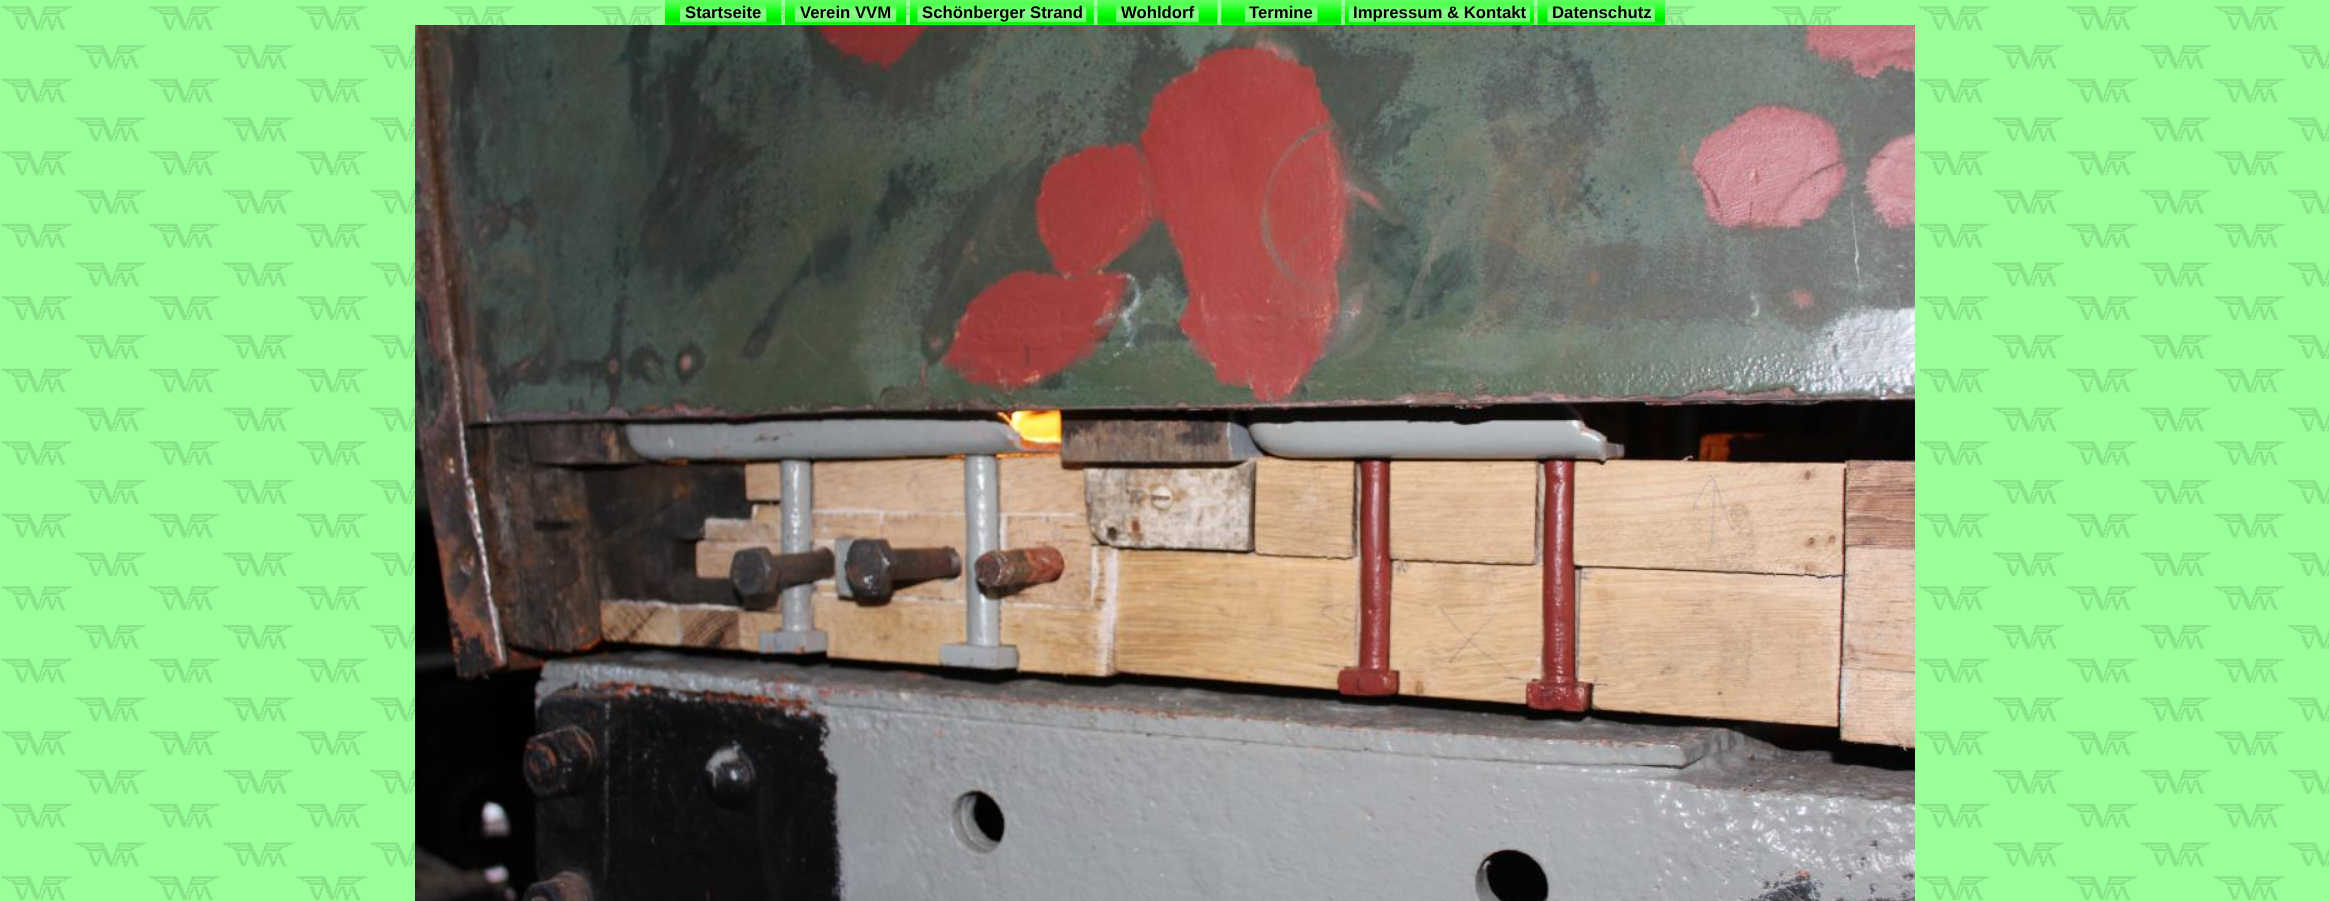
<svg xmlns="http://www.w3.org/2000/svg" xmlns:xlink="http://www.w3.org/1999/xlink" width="2329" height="901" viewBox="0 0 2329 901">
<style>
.cls-1{font:bold 16.75px Liberation Sans;fill:#000001}
</style>
<rect width="100%" height="100%" fill="#ffffff"/>
<image xlink:href="image0.png" x="0" y="0" width="2329" height="901"/>
<image xlink:href="image1.png" x="665" y="0" width="117" height="25"/>
<image xlink:href="image2.png" x="680" y="4" width="87" height="19"/>
<image xlink:href="image3.png" x="785" y="0" width="122" height="25"/>
<image xlink:href="image4.png" x="795" y="4" width="102" height="19"/>
<image xlink:href="image5.png" x="910" y="0" width="184" height="25"/>
<image xlink:href="image6.png" x="917" y="4" width="170" height="19"/>
<image xlink:href="image7.png" x="1097" y="0" width="121" height="25"/>
<image xlink:href="image8.png" x="1116" y="4" width="83" height="19"/>
<image xlink:href="image9.png" x="1221" y="0" width="121" height="25"/>
<image xlink:href="image10.png" x="1245" y="4" width="73" height="19"/>
<image xlink:href="image11.png" x="1345" y="0" width="189" height="25"/>
<image xlink:href="image12.png" x="1348" y="4" width="182" height="19"/>
<image xlink:href="image13.png" x="1537" y="0" width="128" height="25"/>
<image xlink:href="image14.png" x="1547" y="4" width="108" height="19"/>
<image xlink:href="image15.png" x="415" y="25" width="1500" height="876"/>
<text class="cls-1" x="685" y="18">Startseite</text>
<text class="cls-1" x="800" y="18">Verein VVM</text>
<text class="cls-1" x="922" y="18">Schönberger Strand</text>
<text class="cls-1" x="1121" y="18">Wohldorf</text>
<text class="cls-1" x="1249" y="18">Termine</text>
<text class="cls-1" x="1353" y="18">Impressum &amp; Kontakt</text>
<text class="cls-1" x="1552" y="18">Datenschutz</text>
</svg>
